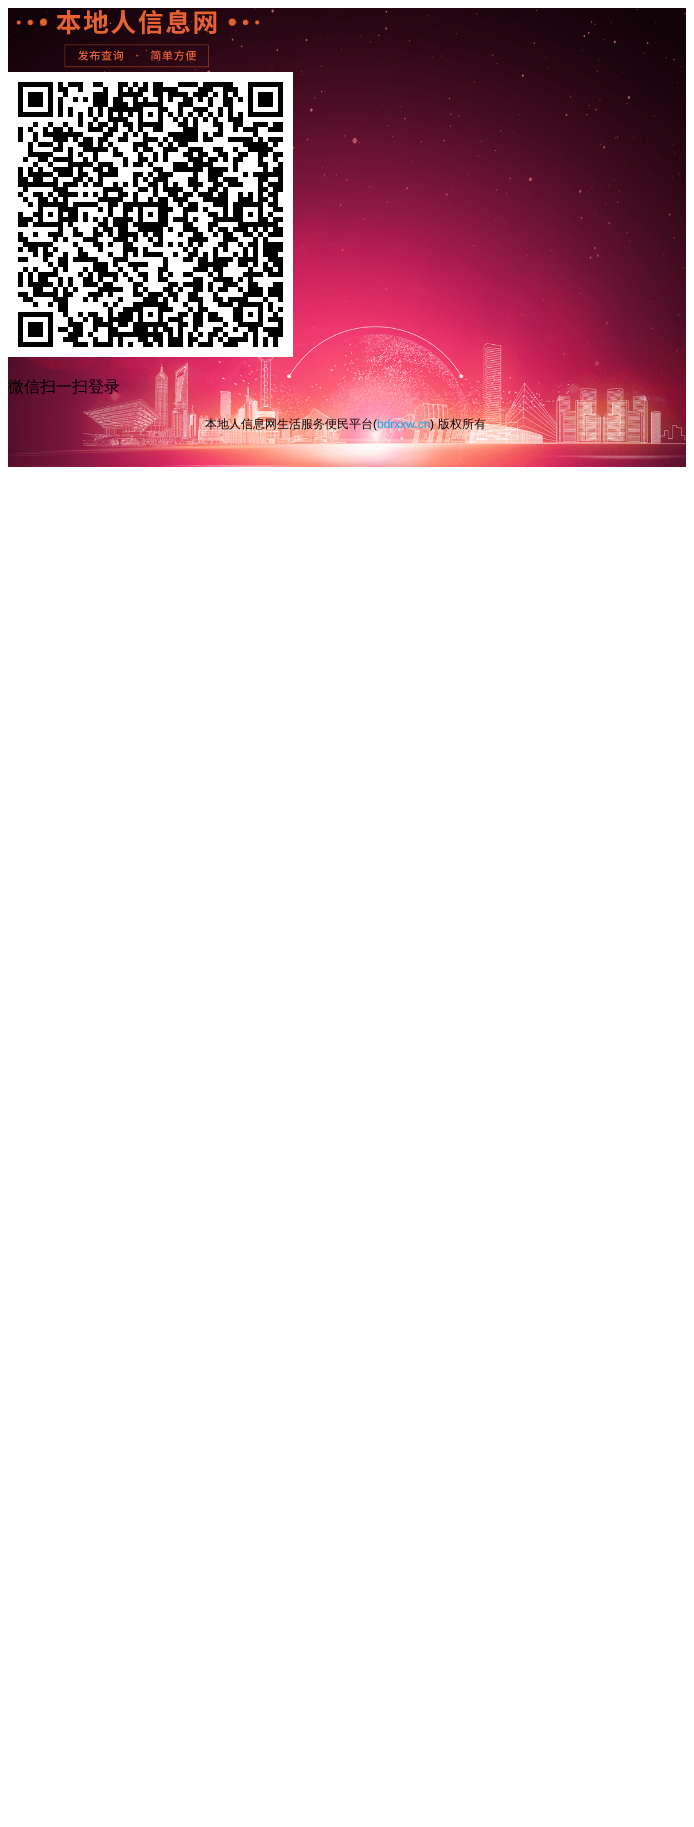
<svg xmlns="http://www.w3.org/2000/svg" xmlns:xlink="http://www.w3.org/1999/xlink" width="694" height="1827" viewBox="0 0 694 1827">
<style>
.cls-1{font:500 16px WenQuanYi Zen Hei;fill:#000000}
.cls-2{font:500 12px WenQuanYi Zen Hei;fill:#000000}
.cls-3{font:12px Liberation Sans;fill:#000000}
.cls-4{font:12px Liberation Sans;fill:#00b0f0}
</style>
<rect width="100%" height="100%" fill="#ffffff"/>
<image xlink:href="image0.png" x="8" y="8" width="678" height="459"/>
<image xlink:href="image1.png" x="16" y="9" width="244" height="59"/>
<image xlink:href="image2.png" x="8" y="72" width="285" height="285"/>
<text class="cls-1" x="8" y="392">微信扫一扫登录</text>
<text class="cls-2" x="205" y="428">本地人信息网生活服务便民平台</text>
<text class="cls-3" x="373" y="428">(</text>
<text class="cls-4" x="377" y="428">bdrxxw.cn</text>
<text class="cls-3" x="430" y="428">)</text>
<text class="cls-2" x="438" y="428">版权所有</text>
</svg>
